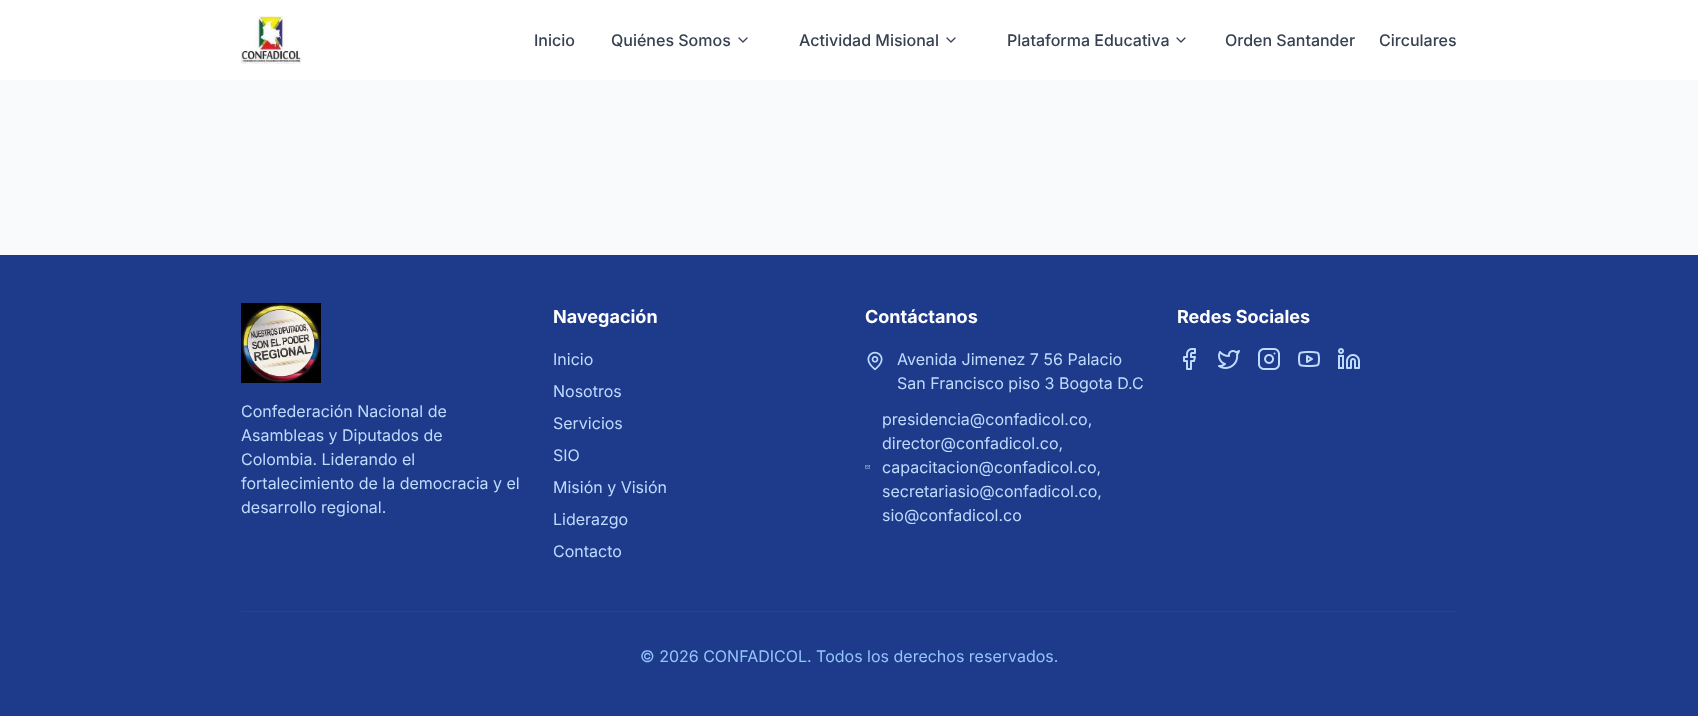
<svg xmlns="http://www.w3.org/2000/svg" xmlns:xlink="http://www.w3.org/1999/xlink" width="1698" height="716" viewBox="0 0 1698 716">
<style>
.cls-1{font:500 16px Inter;fill:#374151}
.cls-2{font:bold 18px Inter;fill:#ffffff}
.cls-3{font:16px Inter;fill:#bfdbfe}
.cls-4{font:16px Inter;fill:#93c5fd}
</style>
<rect width="100%" height="100%" fill="#f9fafb"/>
<rect fill="#ffffff" x="0" y="0" width="1698" height="80"/>
<image xlink:href="image0.png" x="241" y="16" width="60" height="48"/>
<path fill="none" stroke="#374151" stroke-width="1.3" stroke-linecap="round" stroke-linejoin="round" d="M739 38L743 42L747 38"/>
<path fill="none" stroke="#374151" stroke-width="1.3" stroke-linecap="round" stroke-linejoin="round" d="M947 38L951 42L955 38"/>
<path fill="none" stroke="#374151" stroke-width="1.3" stroke-linecap="round" stroke-linejoin="round" d="M1177 38L1181 42L1185 38"/>
<rect fill="#1e3a8a" x="0" y="255" width="1698" height="461"/>
<image xlink:href="image1.png" x="867" y="351" width="16" height="20"/>
<image xlink:href="image2.png" x="865" y="465" width="5" height="4"/>
<image xlink:href="image3.png" x="1183" y="348" width="13" height="22"/>
<image xlink:href="image4.png" x="1218" y="350" width="22" height="19"/>
<image xlink:href="image5.png" x="1258" y="348" width="22" height="22"/>
<image xlink:href="image6.png" x="1298" y="350" width="22" height="18"/>
<image xlink:href="image7.png" x="1338" y="348" width="22" height="21"/>
<image xlink:href="image8.png" x="241" y="303" width="80" height="80"/>
<rect fill="#1e40af" x="241" y="611" width="1216" height="1"/>
<text class="cls-1" x="534" y="46">Inicio</text>
<text class="cls-1" x="611" y="46">Quiénes Somos</text>
<text class="cls-1" x="799" y="46">Actividad Misional</text>
<text class="cls-1" x="1007" y="46">Plataforma Educativa</text>
<text class="cls-1" x="1225" y="46">Orden Santander</text>
<text class="cls-1" x="1379" y="46">Circulares</text>
<text class="cls-2" x="553" y="323">Navegación</text>
<text class="cls-3" x="553" y="365">Inicio</text>
<text class="cls-3" x="553" y="397">Nosotros</text>
<text class="cls-3" x="553" y="429">Servicios</text>
<text class="cls-3" x="553" y="461">SIO</text>
<text class="cls-3" x="553" y="493">Misión y Visión</text>
<text class="cls-3" x="553" y="525">Liderazgo</text>
<text class="cls-3" x="553" y="557">Contacto</text>
<text class="cls-2" x="865" y="323">Contáctanos</text>
<text class="cls-3"><tspan x="897" y="365">Avenida Jimenez 7 56 Palacio</tspan><tspan x="897" y="389">San Francisco piso 3 Bogota D.C</tspan></text>
<text class="cls-3"><tspan x="882" y="425">presidencia@confadicol.co,</tspan><tspan x="882" y="449">director@confadicol.co,</tspan><tspan x="882" y="473">capacitacion@confadicol.co,</tspan><tspan x="882" y="497">secretariasio@confadicol.co,</tspan><tspan x="882" y="521">sio@confadicol.co</tspan></text>
<text class="cls-2" x="1177" y="323">Redes Sociales</text>
<text class="cls-3"><tspan x="241" y="417">Confederación Nacional de</tspan><tspan x="241" y="441">Asambleas y Diputados de</tspan><tspan x="241" y="465">Colombia. Liderando el</tspan><tspan x="241" y="489">fortalecimiento de la democracia y el</tspan><tspan x="241" y="513">desarrollo regional.</tspan></text>
<text class="cls-4" x="640" y="662">© 2026 CONFADICOL. Todos los derechos reservados.</text>
</svg>
